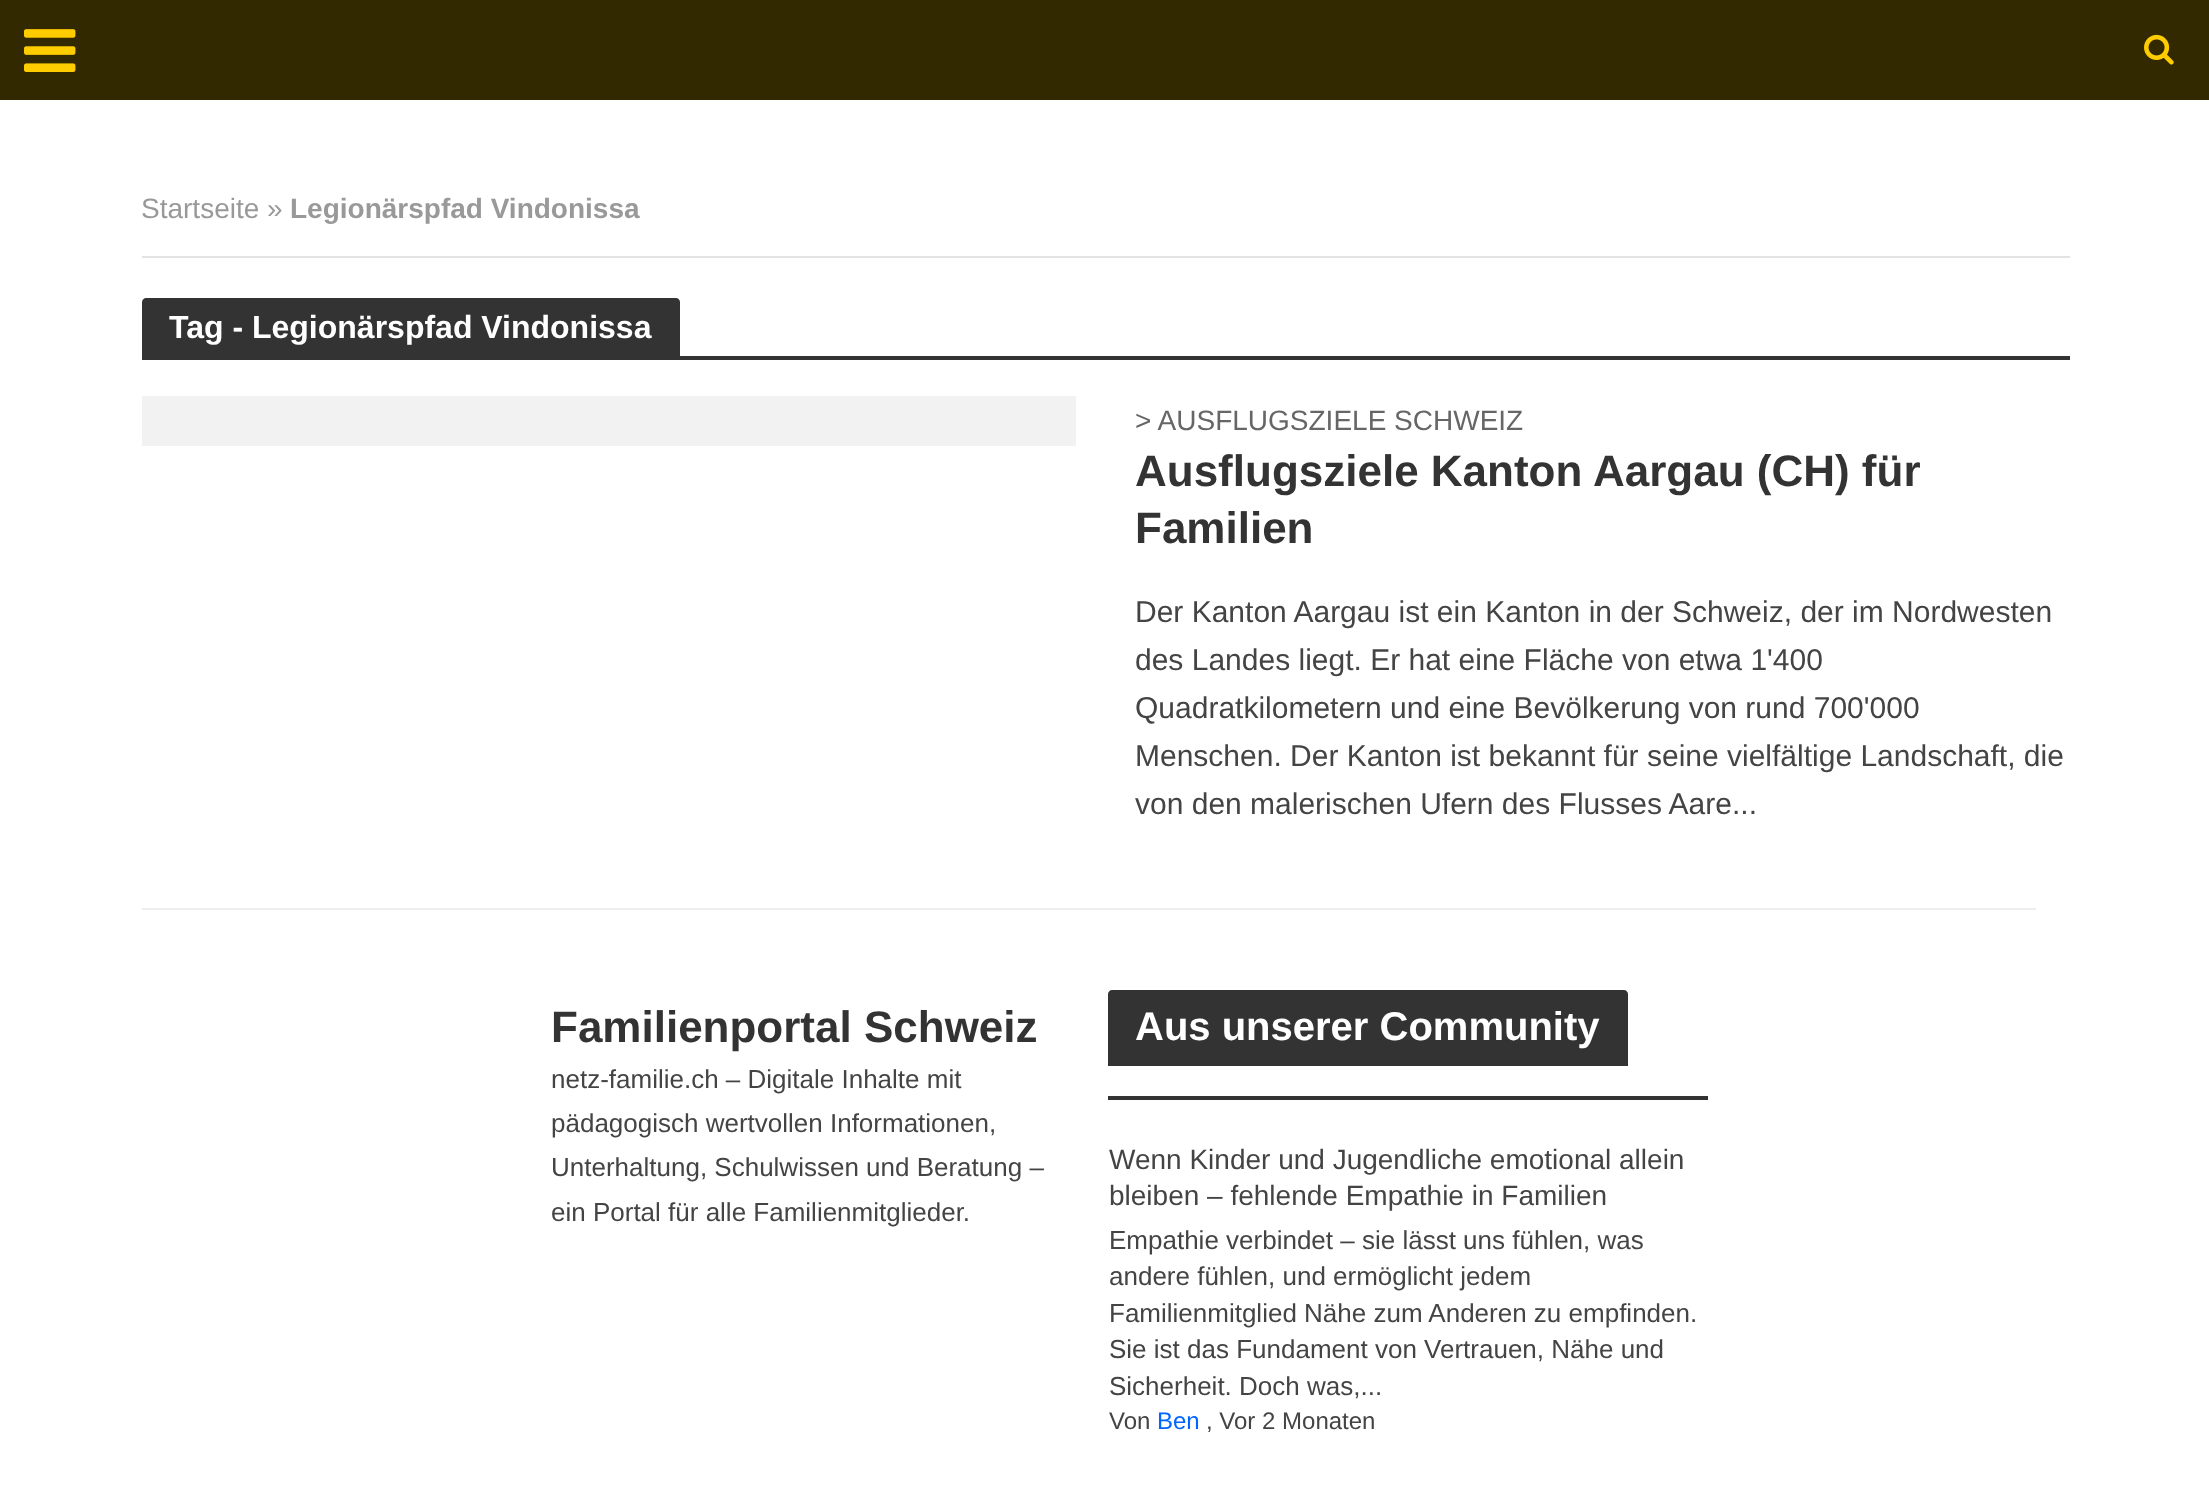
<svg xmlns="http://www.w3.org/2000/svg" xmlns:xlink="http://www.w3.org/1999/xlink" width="2209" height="1491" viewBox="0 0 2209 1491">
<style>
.cls-1{font:28px Liberation Sans;fill:#999999}
.cls-2{font:bold 28px Liberation Sans;fill:#999999}
.cls-3{font:bold 32px Liberation Sans;fill:#ffffff}
.cls-4{font:28px Liberation Sans;fill:#666666}
.cls-5{font:bold 44px Liberation Sans;fill:#333333}
.cls-6{font:30px Liberation Sans;fill:#444444}
.cls-7{font:26px Liberation Sans;fill:#444444}
.cls-8{font:bold 40px Liberation Sans;fill:#ffffff}
.cls-9{font:28px Liberation Sans;fill:#444444}
.cls-10{font:24px Liberation Sans;fill:#444444}
.cls-11{font:24px Liberation Sans;fill:#0066ff}
</style>
<rect width="100%" height="100%" fill="#ffffff"/>
<rect fill="#332900" x="0" y="0" width="2209" height="100"/>
<image xlink:href="image0.png" x="24" y="29" width="52" height="43"/>
<image xlink:href="image1.png" x="2144" y="34" width="30" height="31"/>
<rect fill="#e3e3e3" x="142" y="256" width="1928" height="2"/>
<path fill="#333333" d="M146 298H676C678 298 680 300 680 302V356H142V302C142 300 144 298 146 298Z"/>
<rect fill="#333333" x="142" y="356" width="1928" height="4"/>
<rect fill="#f2f2f2" x="142" y="396" width="934" height="50"/>
<rect fill="#eeeeee" x="142" y="908" width="1894" height="2"/>
<path fill="#333333" d="M1112 990H1624C1626 990 1628 992 1628 994V1066H1108V994C1108 992 1110 990 1112 990Z"/>
<rect fill="#333333" x="1108" y="1096" width="600" height="4"/>
<text class="cls-1" x="141" y="218">Startseite »</text>
<text class="cls-2" x="290" y="218">Legionärspfad Vindonissa</text>
<text class="cls-3" x="169" y="338">Tag - Legionärspfad Vindonissa</text>
<text class="cls-4" x="1135" y="430">&gt; AUSFLUGSZIELE SCHWEIZ</text>
<text class="cls-5"><tspan x="1135" y="486">Ausflugsziele Kanton Aargau (CH) für</tspan><tspan x="1135" y="543">Familien</tspan></text>
<text class="cls-6"><tspan x="1135" y="622">Der Kanton Aargau ist ein Kanton in der Schweiz, der im Nordwesten</tspan><tspan x="1135" y="670">des Landes liegt. Er hat eine Fläche von etwa 1'400</tspan><tspan x="1135" y="718">Quadratkilometern und eine Bevölkerung von rund 700'000</tspan><tspan x="1135" y="766">Menschen. Der Kanton ist bekannt für seine vielfältige Landschaft, die</tspan><tspan x="1135" y="814">von den malerischen Ufern des Flusses Aare...</tspan></text>
<text class="cls-5" x="551" y="1042">Familienportal Schweiz</text>
<text class="cls-7"><tspan x="551" y="1088">netz-familie.ch – Digitale Inhalte mit</tspan><tspan x="551" y="1132">pädagogisch wertvollen Informationen,</tspan><tspan x="551" y="1176">Unterhaltung, Schulwissen und Beratung –</tspan><tspan x="551" y="1221">ein Portal für alle Familienmitglieder.</tspan></text>
<text class="cls-8" x="1135" y="1040">Aus unserer Community</text>
<text class="cls-9"><tspan x="1109" y="1169">Wenn Kinder und Jugendliche emotional allein</tspan><tspan x="1109" y="1205">bleiben – fehlende Empathie in Familien</tspan></text>
<text class="cls-7"><tspan x="1109" y="1249">Empathie verbindet – sie lässt uns fühlen, was</tspan><tspan x="1109" y="1285">andere fühlen, und ermöglicht jedem</tspan><tspan x="1109" y="1322">Familienmitglied Nähe zum Anderen zu empfinden.</tspan><tspan x="1109" y="1358">Sie ist das Fundament von Vertrauen, Nähe und</tspan><tspan x="1109" y="1395">Sicherheit. Doch was,...</tspan></text>
<text class="cls-10" x="1109" y="1429">Von</text>
<text class="cls-11" x="1157" y="1429">Ben</text>
<text class="cls-10" x="1206" y="1429">, Vor 2 Monaten</text>
</svg>
